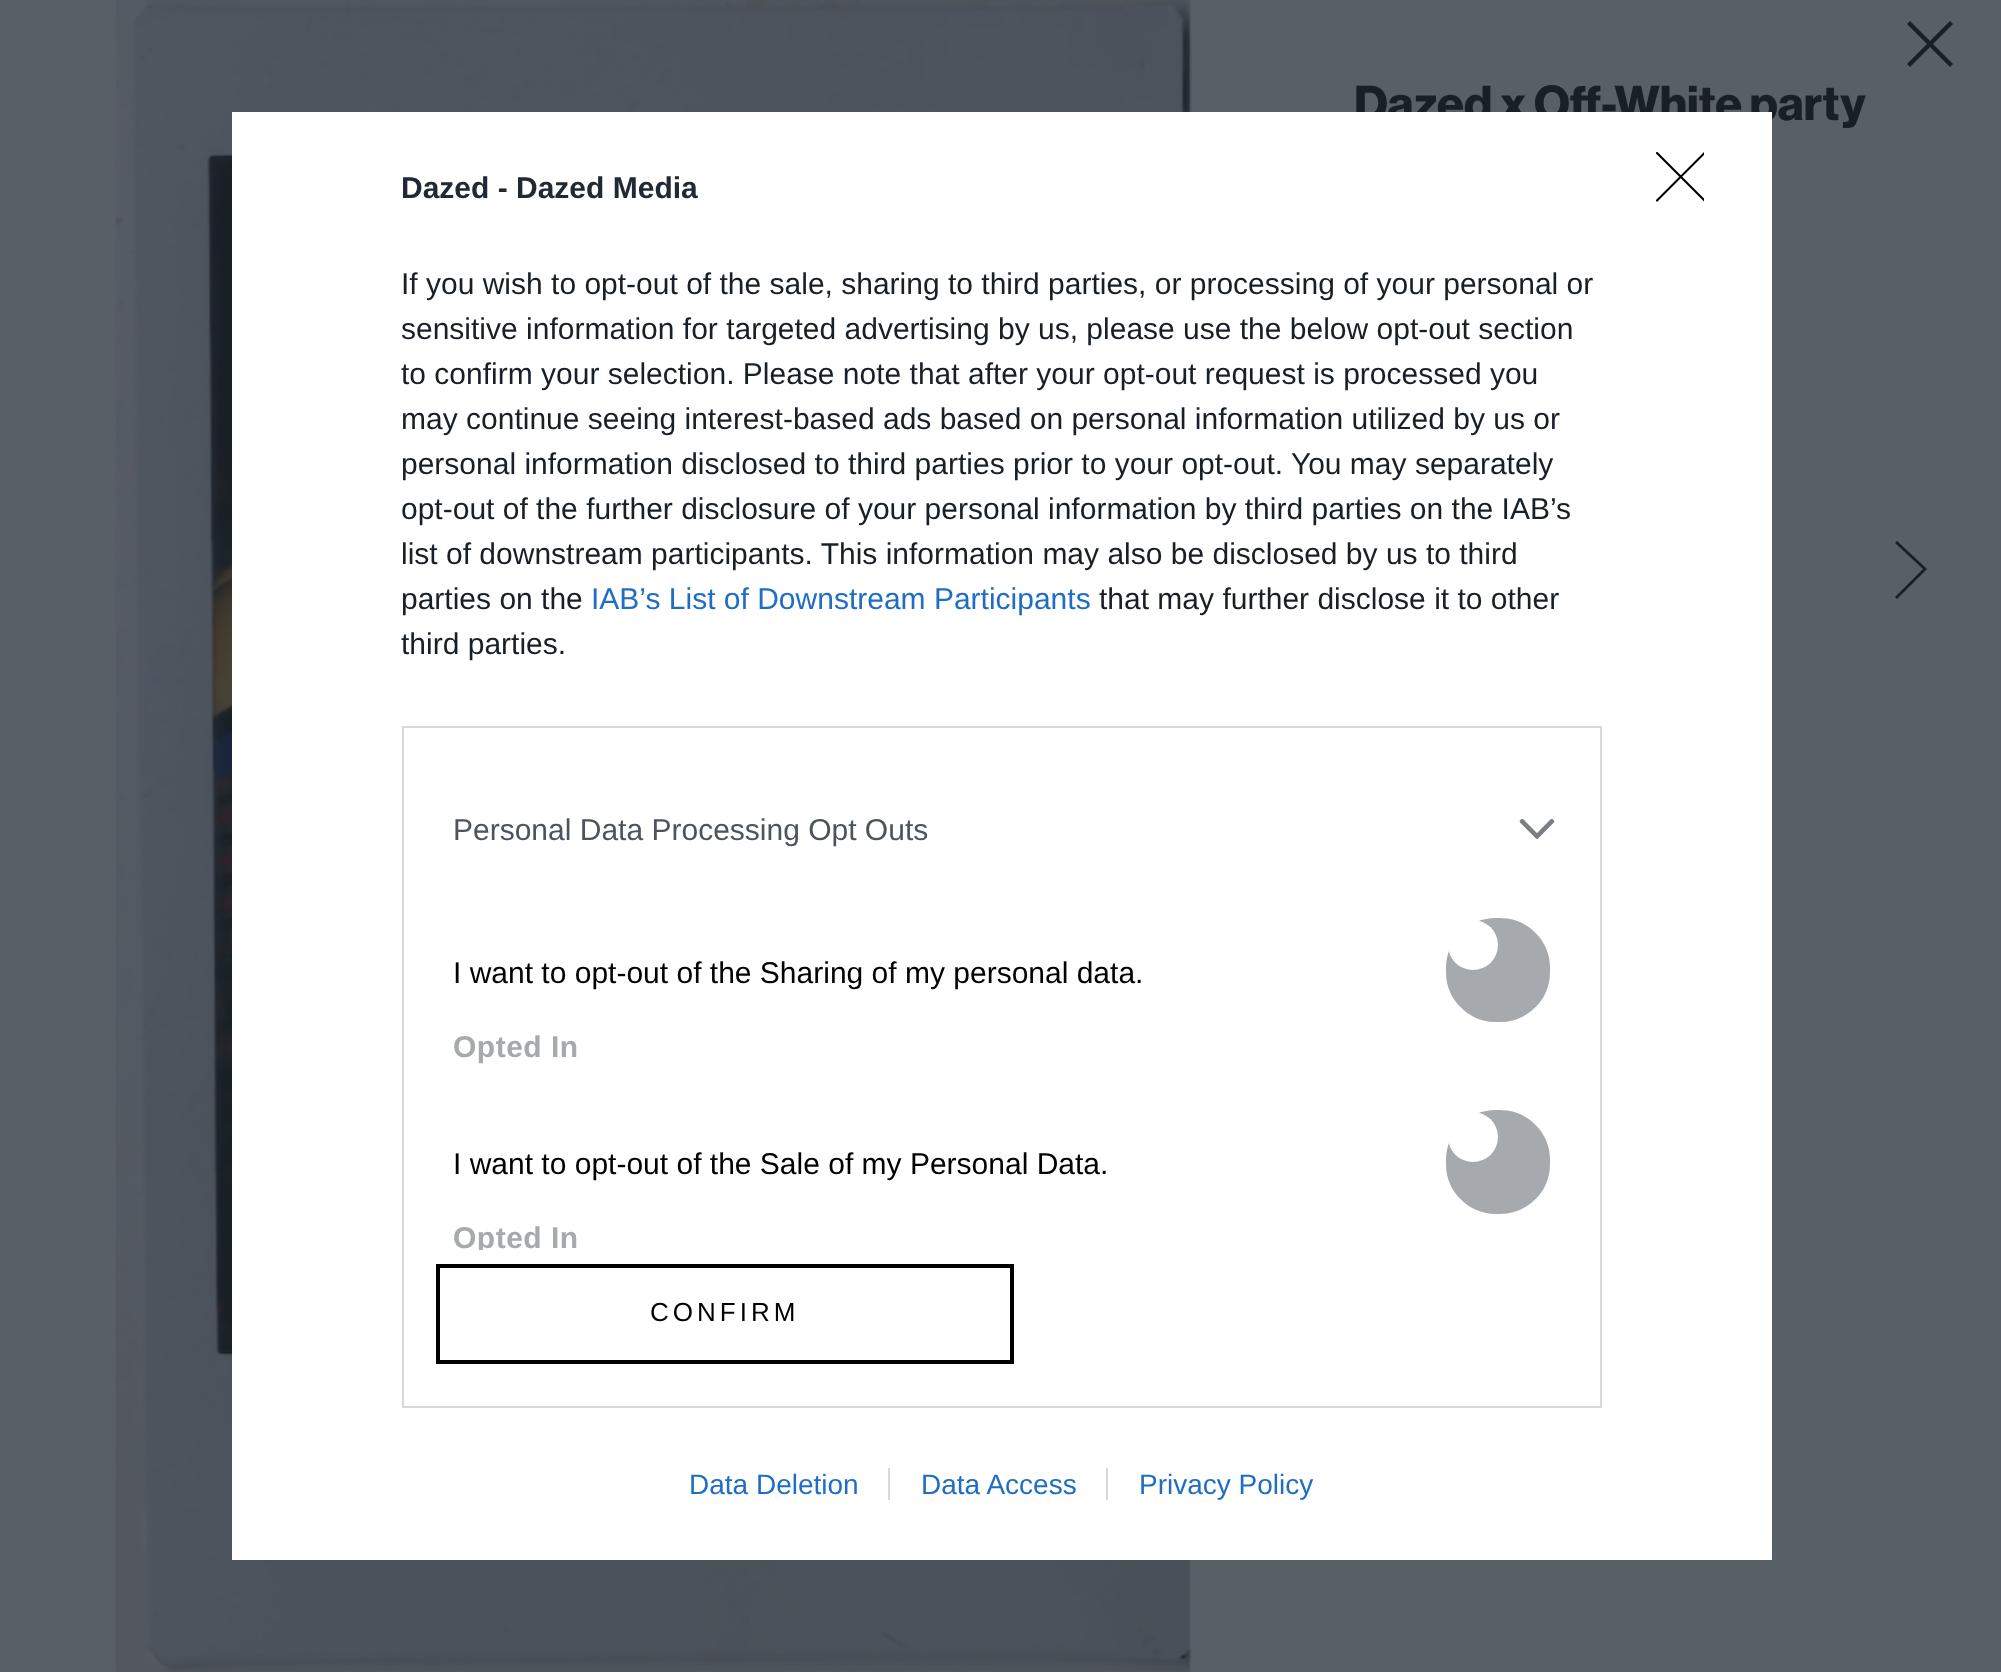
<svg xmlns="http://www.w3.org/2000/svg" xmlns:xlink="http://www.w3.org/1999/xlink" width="2001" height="1672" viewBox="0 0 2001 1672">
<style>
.cls-1{font:bold 48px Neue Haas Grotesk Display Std;fill:#191f27}
.cls-2{font:bold 30px Liberation Sans;fill:#212934}
.cls-3{font:30px Liberation Sans;fill:#191f27}
.cls-4{font:30px Liberation Sans;fill:#206dc5}
.cls-5{font:30px Liberation Sans;fill:#4d545d}
.cls-6{font:30px Liberation Sans;fill:#000000}
.cls-7{font:bold 30px Liberation Sans;letter-spacing:0.5px;fill:#a6a9ae}
.cls-8{font:26px Liberation Sans;letter-spacing:4px;fill:#000000}
.cls-9{font:28px Liberation Sans;fill:#206dc5}
</style>
<defs>
<clipPath id="clip1"><rect x="424" y="748" width="1156" height="502"/></clipPath>
<clipPath id="clip2"><rect x="1656" y="152" width="48" height="50"/></clipPath>
</defs>
<rect width="100%" height="100%" fill="#595f67"/>
<image xlink:href="image0.png" x="115" y="0" width="1077" height="1672"/>
<path fill="#191f27" fill-rule="evenodd" d="M1950 21L1953 24L1910 67L1907 64Z"/>
<path fill="#191f27" fill-rule="evenodd" d="M1953 64L1950 67L1907 24L1910 21Z"/>
<path fill="#191f27" d="M1923 569L1895 543L1897 541L1927 569L1897 599L1895 597Z"/>
<text class="cls-1" x="1354" y="120">Dazed x Off-White party</text>
<rect fill="#ffffff" x="232" y="112" width="1540" height="1448"/>
<text class="cls-2" x="401" y="198">Dazed - Dazed Media</text>
<text class="cls-3"><tspan x="401" y="294">If you wish to opt-out of the sale, sharing to third parties, or processing of your personal or</tspan><tspan x="401" y="339">sensitive information for targeted advertising by us, please use the below opt-out section</tspan><tspan x="401" y="384">to confirm your selection. Please note that after your opt-out request is processed you</tspan><tspan x="401" y="429">may continue seeing interest-based ads based on personal information utilized by us or</tspan><tspan x="401" y="474">personal information disclosed to third parties prior to your opt-out. You may separately</tspan><tspan x="401" y="519">opt-out of the further disclosure of your personal information by third parties on the IAB’s</tspan><tspan x="401" y="564">list of downstream participants. This information may also be disclosed by us to third</tspan><tspan x="401" y="609">parties on the</tspan></text>
<text class="cls-4" x="591" y="609">IAB’s List of Downstream Participants</text>
<text class="cls-3" x="1099" y="609">that may further disclose it to other</text>
<text class="cls-3" x="401" y="654">third parties.</text>
<rect fill="none" stroke="#d8d8d8" stroke-width="2" x="403" y="727" width="1198" height="680"/>
<text class="cls-5" x="453" y="840">Personal Data Processing Opt Outs</text>
<image xlink:href="image1.png" x="1519" y="818" width="36" height="21"/>
<text class="cls-6" x="453" y="983">I want to opt-out of the Sharing of my personal data.</text>
<rect fill="#a6a9ae" stroke="#a6a9ae" stroke-width="2" x="1447" y="919" width="102" height="102" rx="49"/>
<circle fill="#ffffff" cx="1473" cy="945" r="25"/>
<text class="cls-7" x="453" y="1057">Opted In</text>
<text class="cls-6" x="453" y="1174">I want to opt-out of the Sale of my Personal Data.</text>
<rect fill="#a6a9ae" stroke="#a6a9ae" stroke-width="2" x="1447" y="1111" width="102" height="102" rx="49"/>
<circle fill="#ffffff" cx="1473" cy="1137" r="25"/>
<g clip-path="url(#clip1)">
<text class="cls-7" x="453" y="1248">Opted In</text>
</g>
<rect fill="none" stroke="#000000" stroke-width="4" x="438" y="1266" width="574" height="96"/>
<text class="cls-8" x="650" y="1321">CONFIRM</text>
<g clip-path="url(#clip2)">
<path fill="none" stroke="#000000" stroke-width="2.1" stroke-linecap="round" stroke-linejoin="round" d="M1657 153L1704.5 200.5M1704.5 153L1657 200.5"/>
</g>
<text class="cls-9" x="689" y="1494">Data Deletion</text>
<text class="cls-9" x="921" y="1494">Data Access</text>
<rect fill="#d8d8d8" x="888" y="1468" width="2" height="32"/>
<text class="cls-9" x="1139" y="1494">Privacy Policy</text>
<rect fill="#d8d8d8" x="1106" y="1468" width="2" height="32"/>
</svg>
